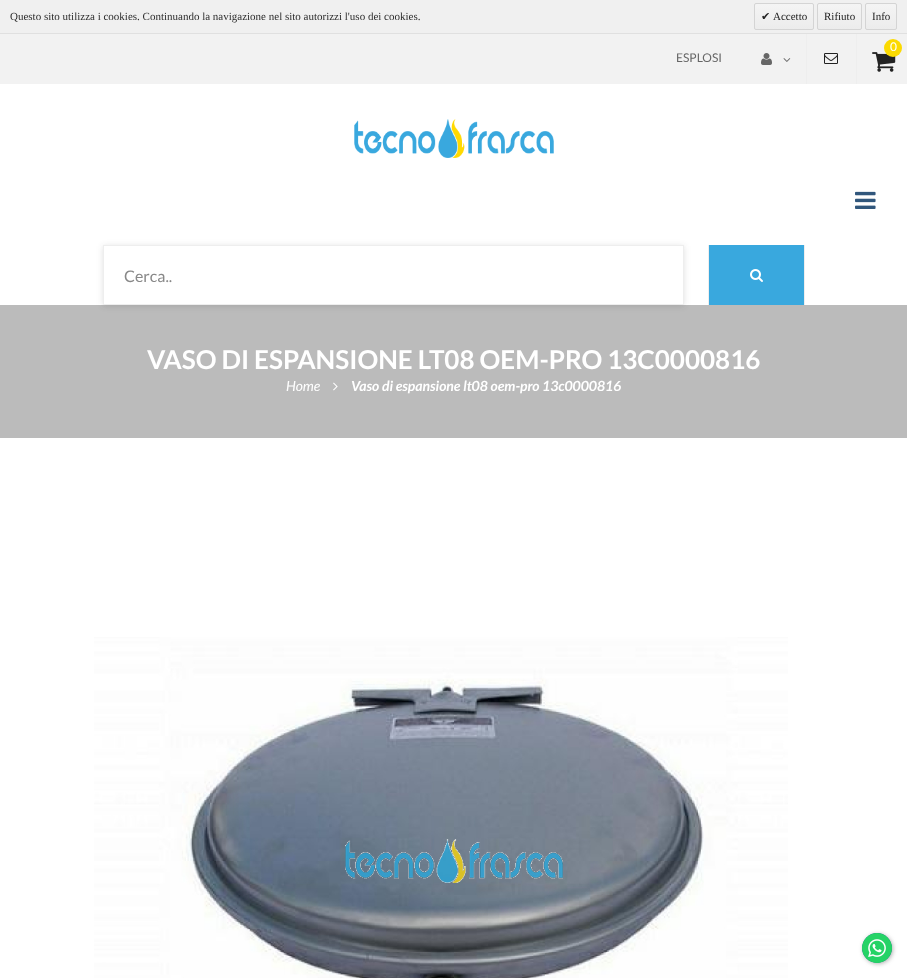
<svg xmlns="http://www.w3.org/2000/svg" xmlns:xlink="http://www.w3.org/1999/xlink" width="907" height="978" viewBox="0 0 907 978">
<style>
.cls-1{font:11px Liberation Serif;fill:#2c2c2c}
.cls-2{font:11px DejaVu Sans;fill:#222222}
.cls-3{font:11px Liberation Serif;fill:#222222}
.cls-4{font:12px Lato;fill:#ffffff}
.cls-5{font:12px Lato;fill:#666666}
.cls-6{font:16px Lato;fill:#888888}
.cls-7{font:bold 26px Lato;fill:#ffffff}
.cls-8{font:italic 14px Lato;fill:#ffffff}
.cls-9{font:italic bold 14px Lato;fill:#ffffff}
</style>
<defs>
<clipPath id="clip1"><rect x="754" y="3" width="60" height="27" rx="2"/></clipPath>
<linearGradient id="g1" gradientUnits="userSpaceOnUse" x1="784" y1="4" x2="784" y2="29"><stop offset="0" stop-color="#f4f4f4"/><stop offset="1" stop-color="#ececec"/></linearGradient>
<clipPath id="clip2"><rect x="817" y="3" width="45" height="27" rx="2"/></clipPath>
<linearGradient id="g2" gradientUnits="userSpaceOnUse" x1="840" y1="4" x2="840" y2="29"><stop offset="0" stop-color="#f4f4f4"/><stop offset="1" stop-color="#ececec"/></linearGradient>
<clipPath id="clip3"><rect x="865" y="3" width="32" height="27" rx="2"/></clipPath>
<linearGradient id="g3" gradientUnits="userSpaceOnUse" x1="881" y1="4" x2="881" y2="29"><stop offset="0" stop-color="#f4f4f4"/><stop offset="1" stop-color="#ececec"/></linearGradient>
<clipPath id="clip4"><path d="M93 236H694V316H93ZM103 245H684V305H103Z" clip-rule="evenodd"/></clipPath>
</defs>
<rect width="100%" height="100%" fill="#ffffff"/>
<rect fill="#f0f0f0" x="0" y="0" width="907" height="33"/>
<rect fill="#e0e0e0" x="0" y="33" width="907" height="1"/>
<g clip-path="url(#clip1)">
<rect fill="url(#g1)" x="754" y="4" width="60" height="25"/>
</g>
<rect fill="none" stroke="#d4d4d4" x="754.5" y="3.5" width="59" height="26" rx="1.5"/>
<g clip-path="url(#clip2)">
<rect fill="url(#g2)" x="817" y="4" width="45" height="25"/>
</g>
<rect fill="none" stroke="#d4d4d4" x="817.5" y="3.5" width="44" height="26" rx="1.5"/>
<g clip-path="url(#clip3)">
<rect fill="url(#g3)" x="865" y="4" width="32" height="25"/>
</g>
<rect fill="none" stroke="#d4d4d4" x="865.5" y="3.5" width="31" height="26" rx="1.5"/>
<rect fill="#f2f2f2" x="0" y="34" width="907" height="50"/>
<rect fill="#eeeeee" x="806" y="34" width="1" height="50"/>
<image xlink:href="image0.png" x="824" y="53" width="14" height="11"/>
<rect fill="#eeeeee" x="856" y="34" width="1" height="50"/>
<image xlink:href="image1.png" x="872" y="52" width="24" height="20"/>
<circle fill="#fbda01" cx="893" cy="48" r="9"/>
<image xlink:href="image2.png" x="761" y="53" width="11" height="12"/>
<image xlink:href="image3.png" x="783" y="58" width="8" height="4"/>
<image xlink:href="image4.png" x="855" y="191" width="21" height="18"/>
<image xlink:href="image5.png" x="354" y="119" width="200" height="39"/>
<rect fill="#bbbbbb" x="0" y="305" width="907" height="133"/>
<g clip-path="url(#clip4)">
<rect fill="#202124" fill-opacity="0.14" filter="blur(3px)" x="103" y="246" width="581" height="60"/>
</g>
<rect fill="none" stroke="#eeeeee" x="103.5" y="245.5" width="580" height="59"/>
<rect fill="#39a8de" x="709" y="245" width="95" height="60"/>
<rect fill="#eeeeee" x="804" y="245" width="1" height="60"/>
<rect fill="#eeeeee" x="708" y="245" width="1" height="60"/>
<image xlink:href="image6.png" x="750" y="269" width="13" height="13"/>
<image xlink:href="image7.png" x="333" y="382" width="5" height="9"/>
<image xlink:href="image8.png" x="94" y="637" width="694" height="341"/>
<rect fill="#3c3c3c" fill-opacity="0.4" filter="blur(2px)" x="863" y="934" width="30" height="30" rx="15"/>
<circle fill="#128c7e" cx="877" cy="948" r="15"/>
<image xlink:href="image9.png" x="862" y="933" width="30" height="30"/>
<text class="cls-1" x="10" y="20">Questo sito utilizza i cookies. Continuando la navigazione nel sito autorizzi l'uso dei cookies.</text>
<text class="cls-2" x="761" y="20">✔</text>
<text class="cls-3" x="773" y="20">Accetto</text>
<text class="cls-3" x="824" y="20">Rifiuto</text>
<text class="cls-3" x="872" y="20">Info</text>
<text class="cls-4" x="890" y="51">0</text>
<text class="cls-5" x="676" y="62">ESPLOSI</text>
<text class="cls-6" x="124" y="282">Cerca..</text>
<text class="cls-7" x="147" y="369">VASO DI ESPANSIONE LT08 OEM-PRO 13C0000816</text>
<text class="cls-8" x="286" y="391">Home</text>
<text class="cls-9" x="351" y="391">Vaso di espansione lt08 oem-pro 13c0000816</text>
</svg>
